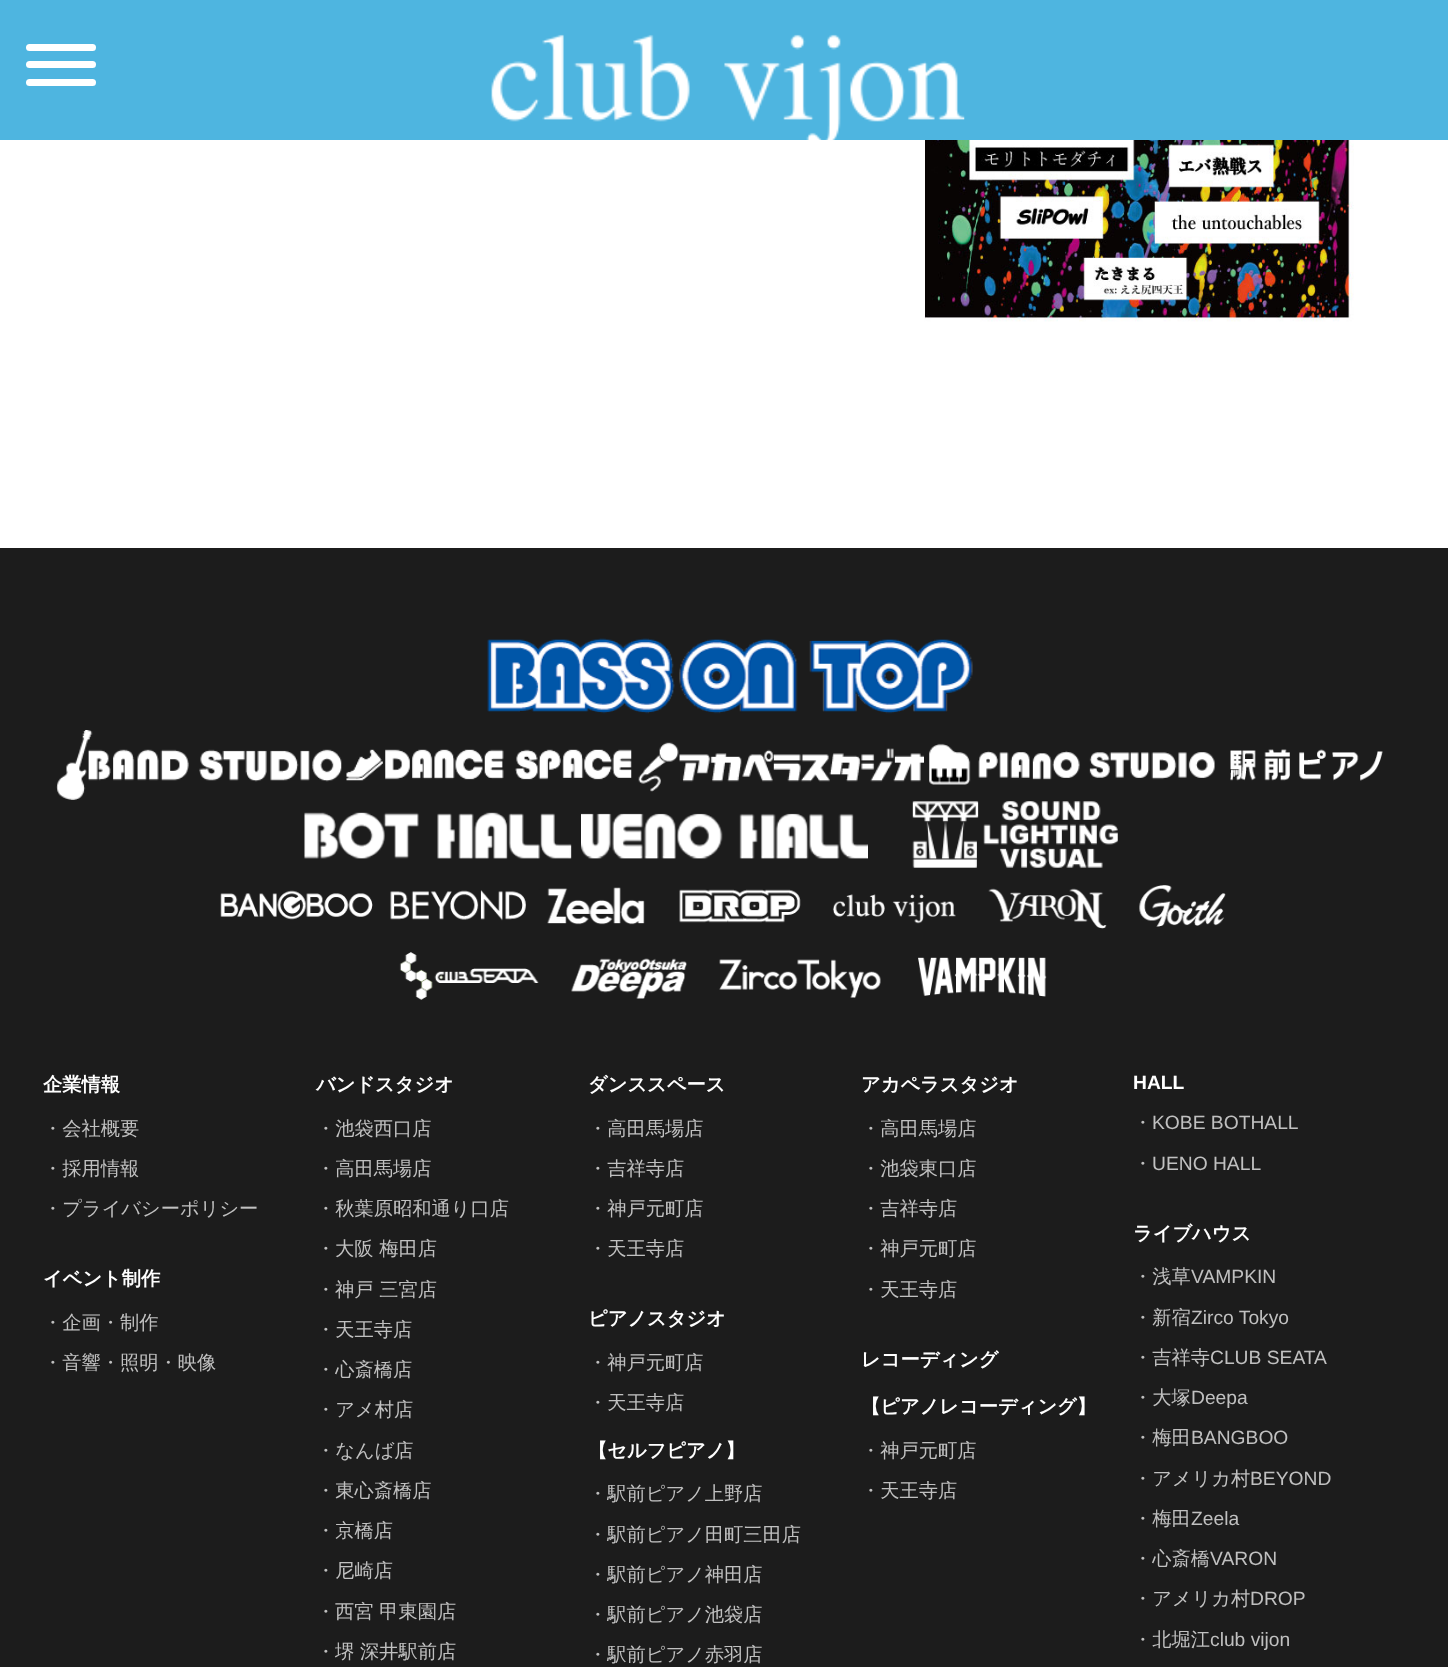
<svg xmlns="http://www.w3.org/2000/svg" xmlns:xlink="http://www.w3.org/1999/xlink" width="1448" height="1667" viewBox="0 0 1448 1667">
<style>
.cls-1{font:bold 19.25px WenQuanYi Zen Hei;fill:#ffffff}
.cls-2{font:500 19.25px WenQuanYi Zen Hei;fill:#c0c0c0}
.cls-3{font:bold 19.25px Liberation Sans;fill:#ffffff}
.cls-4{font:19.25px Liberation Sans;fill:#c0c0c0}
</style>
<rect width="100%" height="100%" fill="#ffffff"/>
<rect fill="#4eb5e0" x="0" y="0" width="1448" height="140"/>
<rect fill="#ffffff" x="26" y="44" width="70" height="7" rx="3.5"/>
<rect fill="#ffffff" x="26" y="61" width="70" height="7" rx="3.5"/>
<rect fill="#ffffff" x="26" y="79" width="70" height="7" rx="3.5"/>
<image xlink:href="image0.png" x="491" y="34" width="474" height="106"/>
<image xlink:href="image1.png" x="924" y="140" width="430" height="182"/>
<rect fill="#1c1c1c" x="0" y="548" width="1448" height="1119"/>
<image xlink:href="image2.png" x="487" y="638" width="486" height="76"/>
<image xlink:href="image3.png" x="56" y="730" width="286" height="70"/>
<image xlink:href="image4.png" x="346" y="749" width="286" height="32"/>
<image xlink:href="image5.png" x="638" y="742" width="286" height="50"/>
<image xlink:href="image6.png" x="929" y="743" width="286" height="42"/>
<image xlink:href="image7.png" x="1230" y="749" width="153" height="32"/>
<image xlink:href="image8.png" x="304" y="812" width="268" height="47"/>
<image xlink:href="image9.png" x="581" y="813" width="287" height="46"/>
<image xlink:href="image10.png" x="912" y="801" width="206" height="67"/>
<image xlink:href="image11.png" x="220" y="890" width="153" height="30"/>
<image xlink:href="image12.png" x="390" y="890" width="136" height="31"/>
<image xlink:href="image13.png" x="547" y="887" width="98" height="38"/>
<image xlink:href="image14.png" x="679" y="889" width="122" height="34"/>
<image xlink:href="image15.png" x="832" y="894" width="124" height="30"/>
<image xlink:href="image16.png" x="988" y="888" width="119" height="41"/>
<image xlink:href="image17.png" x="1139" y="885" width="87" height="42"/>
<image xlink:href="image18.png" x="399" y="952" width="140" height="48"/>
<image xlink:href="image19.png" x="571" y="958" width="116" height="41"/>
<image xlink:href="image20.png" x="719" y="959" width="162" height="39"/>
<image xlink:href="image21.png" x="918" y="957" width="129" height="40"/>
<text class="cls-1" x="43" y="1091">企業情報</text>
<text class="cls-2" x="43" y="1135">・会社概要</text>
<text class="cls-2" x="43" y="1175">・採用情報</text>
<text class="cls-2" x="43" y="1215">・プライバシーポリシー</text>
<text class="cls-1" x="43" y="1285">イベント制作</text>
<text class="cls-2" x="43" y="1329">・企画・制作</text>
<text class="cls-2" x="43" y="1369">・音響・照明・映像</text>
<text class="cls-1" x="316" y="1091">バンドスタジオ</text>
<text class="cls-2" x="316" y="1135">・池袋西口店</text>
<text class="cls-2" x="316" y="1175">・高田馬場店</text>
<text class="cls-2" x="316" y="1215">・秋葉原昭和通り口店</text>
<text class="cls-2" x="316" y="1255">・</text>
<text class="cls-2" x="335" y="1255">大阪 梅田店</text>
<text class="cls-2" x="316" y="1296">・</text>
<text class="cls-2" x="335" y="1296">神戸 三宮店</text>
<text class="cls-2" x="316" y="1336">・天王寺店</text>
<text class="cls-2" x="316" y="1376">・心斎橋店</text>
<text class="cls-2" x="316" y="1416">・アメ村店</text>
<text class="cls-2" x="316" y="1457">・なんば店</text>
<text class="cls-2" x="316" y="1497">・東心斎橋店</text>
<text class="cls-2" x="316" y="1537">・京橋店</text>
<text class="cls-2" x="316" y="1577">・尼崎店</text>
<text class="cls-2" x="316" y="1618">・</text>
<text class="cls-2" x="335" y="1618">西宮 甲東園店</text>
<text class="cls-2" x="316" y="1658">・</text>
<text class="cls-2" x="335" y="1658">堺 深井駅前店</text>
<text class="cls-1" x="588" y="1091">ダンススペース</text>
<text class="cls-2" x="588" y="1135">・高田馬場店</text>
<text class="cls-2" x="588" y="1175">・吉祥寺店</text>
<text class="cls-2" x="588" y="1215">・神戸元町店</text>
<text class="cls-2" x="588" y="1255">・天王寺店</text>
<text class="cls-1" x="588" y="1325">ピアノスタジオ</text>
<text class="cls-2" x="588" y="1369">・神戸元町店</text>
<text class="cls-2" x="588" y="1409">・天王寺店</text>
<text class="cls-1" x="588" y="1457">【セルフピアノ】</text>
<text class="cls-2" x="588" y="1500">・駅前ピアノ上野店</text>
<text class="cls-2" x="588" y="1541">・駅前ピアノ田町三田店</text>
<text class="cls-2" x="588" y="1581">・駅前ピアノ神田店</text>
<text class="cls-2" x="588" y="1621">・駅前ピアノ池袋店</text>
<text class="cls-2" x="588" y="1661">・駅前ピアノ赤羽店</text>
<text class="cls-1" x="861" y="1091">アカペラスタジオ</text>
<text class="cls-2" x="861" y="1135">・高田馬場店</text>
<text class="cls-2" x="861" y="1175">・池袋東口店</text>
<text class="cls-2" x="861" y="1215">・吉祥寺店</text>
<text class="cls-2" x="861" y="1255">・神戸元町店</text>
<text class="cls-2" x="861" y="1296">・天王寺店</text>
<text class="cls-1" x="861" y="1366">レコーディング</text>
<text class="cls-1" x="861" y="1413">【ピアノレコーディング】</text>
<text class="cls-2" x="861" y="1457">・神戸元町店</text>
<text class="cls-2" x="861" y="1497">・天王寺店</text>
<text class="cls-3" x="1133" y="1089">HALL</text>
<text class="cls-2" x="1133" y="1129">・</text>
<text class="cls-4" x="1152" y="1129">KOBE BOTHALL</text>
<text class="cls-2" x="1133" y="1170">・</text>
<text class="cls-4" x="1152" y="1170">UENO HALL</text>
<text class="cls-1" x="1133" y="1240">ライブハウス</text>
<text class="cls-2" x="1133" y="1283">・浅草</text>
<text class="cls-4" x="1191" y="1283">VAMPKIN</text>
<text class="cls-2" x="1133" y="1324">・新宿</text>
<text class="cls-4" x="1191" y="1324">Zirco Tokyo</text>
<text class="cls-2" x="1133" y="1364">・吉祥寺</text>
<text class="cls-4" x="1210" y="1364">CLUB SEATA</text>
<text class="cls-2" x="1133" y="1404">・大塚</text>
<text class="cls-4" x="1191" y="1404">Deepa</text>
<text class="cls-2" x="1133" y="1444">・梅田</text>
<text class="cls-4" x="1191" y="1444">BANGBOO</text>
<text class="cls-2" x="1133" y="1485">・アメリカ村</text>
<text class="cls-4" x="1250" y="1485">BEYOND</text>
<text class="cls-2" x="1133" y="1525">・梅田</text>
<text class="cls-4" x="1191" y="1525">Zeela</text>
<text class="cls-2" x="1133" y="1565">・心斎橋</text>
<text class="cls-4" x="1210" y="1565">VARON</text>
<text class="cls-2" x="1133" y="1605">・アメリカ村</text>
<text class="cls-4" x="1250" y="1605">DROP</text>
<text class="cls-2" x="1133" y="1646">・北堀江</text>
<text class="cls-4" x="1210" y="1646">club vijon</text>
</svg>
